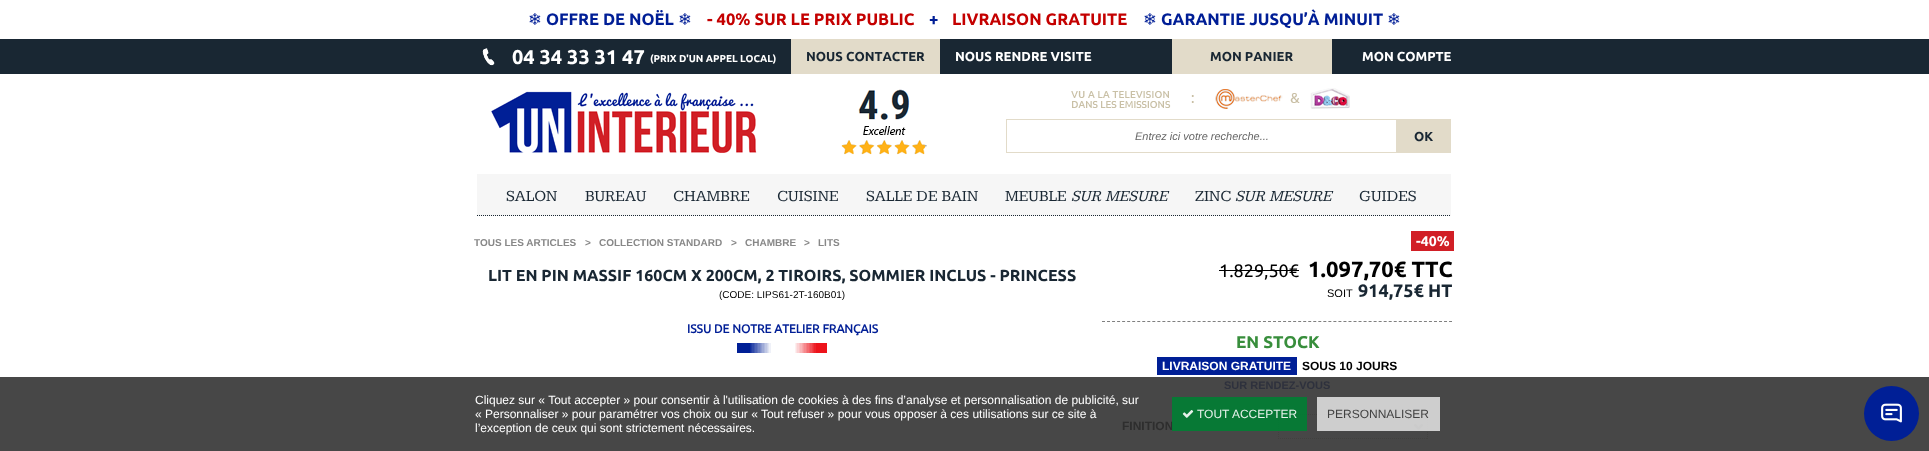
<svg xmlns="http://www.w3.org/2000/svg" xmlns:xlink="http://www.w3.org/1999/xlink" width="1929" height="451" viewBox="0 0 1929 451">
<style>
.cls-1{font:16.5px DejaVu Sans;fill:#001e96}
.cls-2{font:bold 16.5px Ubuntu;fill:#001e96}
.cls-3{font:bold 16.5px Ubuntu;fill:#c40000}
.cls-4{font:bold 20px Ubuntu;fill:#ffffff}
.cls-5{font:bold 10px Ubuntu;fill:#ffffff}
.cls-6{font:bold 13px Ubuntu;fill:#192733}
.cls-7{font:bold 13px Ubuntu;fill:#ffffff}
.cls-8{font:italic 11px Liberation Sans;fill:#666666}
.cls-9{font:16px Kameron;fill:#192733}
.cls-10{font:italic 16px Kameron;fill:#192733}
.cls-11{font:bold 16px Ubuntu;fill:#192733}
.cls-12{font:10px Liberation Sans;fill:#000000}
.cls-13{font:bold 12px 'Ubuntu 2';fill:#001e96}
.cls-14{font:bold 14px Ubuntu;fill:#ffffff}
.cls-15{font:18px Ubuntu;fill:#000000}
.cls-16{font:bold 22px Ubuntu;fill:#000000}
.cls-17{font:11px Liberation Sans;fill:#000000}
.cls-18{font:bold 18px Ubuntu;fill:#192733}
.cls-19{font:bold 17px Ubuntu;fill:#388e3c}
.cls-20{font:bold 12px Liberation Sans;fill:#ffffff}
.cls-21{font:bold 12px Liberation Sans;fill:#000000}
.cls-22{font:bold 11px Liberation Sans;fill:#2e313d}
.cls-23{font:bold 12px Liberation Sans;fill:#2e2e2e}
.cls-24{font:bold 10px Liberation Sans;fill:#888888}
.cls-25{font:12px Liberation Sans;fill:#ffffff}
.cls-26{font:12px Liberation Sans;fill:#e6f2eb}
.cls-27{font:12px Liberation Sans;fill:#424242}
</style>
<rect width="100%" height="100%" fill="#ffffff"/>
<rect fill="#474747" x="0" y="377" width="1929" height="74"/>
<rect fill="#192733" x="0" y="39" width="1929" height="35"/>
<image xlink:href="image0.png" x="482" y="48" width="13" height="18"/>
<rect fill="#e2dbc9" x="791" y="39" width="149" height="35"/>
<rect fill="#e2dbc9" x="1172" y="39" width="160" height="35"/>
<image xlink:href="image1.png" x="491" y="91" width="266" height="62"/>
<image xlink:href="image2.png" x="841" y="89" width="86" height="66"/>
<image xlink:href="image3.png" x="1071" y="88" width="279" height="21"/>
<rect fill="#e2dbc9" x="1006" y="119" width="390" height="1"/>
<rect fill="#e2dbc9" x="1006" y="152" width="390" height="1"/>
<rect fill="#e2dbc9" x="1006" y="119" width="1" height="34"/>
<rect fill="#e2dbc9" x="1396" y="119" width="55" height="34"/>
<rect fill="#f6f6f6" x="477" y="174" width="974" height="42"/>
<path fill="none" stroke="#192733" stroke-dasharray="1 1" d="M477 215.5H1451"/>
<image xlink:href="image4.png" x="737" y="343" width="90" height="10"/>
<rect fill="#d11f26" x="1411" y="231" width="43" height="20"/>
<rect fill="#000000" x="1219" y="270" width="80" height="1"/>
<path fill="none" stroke="#808080" stroke-dasharray="3 2.03" d="M1102 321.5H1452"/>
<rect fill="#001f96" x="1157" y="357" width="140" height="18"/>
<path fill="none" stroke="#41413f" stroke-dasharray="1 1" d="M1278 414.5H1428"/>
<path fill="none" stroke="#41413f" stroke-dasharray="1 1" d="M1427.5 414V439"/>
<path fill="none" stroke="#41413f" stroke-dasharray="1 1" d="M1278 438.5H1428"/>
<path fill="none" stroke="#41413f" stroke-dasharray="1 1" d="M1278.5 414V439"/>
<path fill="none" stroke="#2e2e2e" stroke-width="2" d="M1414.5 424.5L1418.5 428.5L1422.5 424.5"/>
<rect fill="#dddddd" fill-opacity="0.9" x="1317" y="397" width="123" height="34"/>
<circle fill="#001f96" cx="1891.5" cy="413.5" r="27.5"/>
<image xlink:href="image6.png" x="1881" y="403" width="21" height="20"/>
<text class="cls-1" x="528" y="25">❄</text>
<text class="cls-2" x="546" y="25">OFFRE DE NOËL</text>
<text class="cls-1" x="678" y="25">❄</text>
<text class="cls-3" x="707" y="25">- 40% SUR LE PRIX PUBLIC</text>
<text class="cls-2" x="929" y="25">+</text>
<text class="cls-3" x="952" y="25">LIVRAISON GRATUITE</text>
<text class="cls-1" x="1143" y="25">❄</text>
<text class="cls-2" x="1161" y="25">GARANTIE JUSQU’À MINUIT</text>
<text class="cls-1" x="1387" y="25">❄</text>
<text class="cls-4" x="512" y="64">04 34 33 31 47</text>
<text class="cls-5" x="650" y="62">(PRIX D'UN APPEL LOCAL)</text>
<text class="cls-6" x="806" y="61">NOUS CONTACTER</text>
<text class="cls-7" x="955" y="61">NOUS RENDRE VISITE</text>
<text class="cls-6" x="1210" y="61">MON PANIER</text>
<text class="cls-7" x="1362" y="61">MON COMPTE</text>
<text class="cls-8" x="1135" y="140">Entrez ici votre recherche...</text>
<text class="cls-6" x="1414" y="141">OK</text>
<text class="cls-9" x="506" y="201">SALON</text>
<text class="cls-9" x="585" y="201">BUREAU</text>
<text class="cls-9" x="673" y="201">CHAMBRE</text>
<text class="cls-9" x="777" y="201">CUISINE</text>
<text class="cls-9" x="866" y="201">SALLE DE BAIN</text>
<text class="cls-9" x="1005" y="201">MEUBLE</text>
<text class="cls-10" x="1071" y="201">SUR MESURE</text>
<text class="cls-9" x="1195" y="201">ZINC</text>
<text class="cls-10" x="1235" y="201">SUR MESURE</text>
<text class="cls-9" x="1359" y="201">GUIDES</text>
<text class="cls-11" x="488" y="281">LIT EN PIN MASSIF 160CM X 200CM, 2 TIROIRS, SOMMIER INCLUS - PRINCESS</text>
<text class="cls-12" x="719" y="298">(CODE: LIPS61-2T-160B01)</text>
<text class="cls-13" x="687" y="333">ISSU DE NOTRE ATELIER FRANÇAIS</text>
<text class="cls-14" x="1416" y="246">-40%</text>
<text class="cls-15" x="1219" y="277">1.829,50€</text>
<text class="cls-16" x="1308" y="277">1.097,70€ TTC</text>
<text class="cls-17" x="1327" y="297">SOIT</text>
<text class="cls-18" x="1358" y="297">914,75€ HT</text>
<text class="cls-19" x="1236" y="348">EN STOCK</text>
<text class="cls-20" x="1162" y="370">LIVRAISON GRATUITE</text>
<text class="cls-21" x="1302" y="370">SOUS 10 JOURS</text>
<text class="cls-22" x="1224" y="389">SUR RENDEZ-VOUS</text>
<text class="cls-23" x="1122" y="430">FINITION</text>
<text class="cls-24" x="474" y="246">TOUS LES ARTICLES</text>
<text class="cls-24" x="585" y="246">&gt;</text>
<text class="cls-24" x="599" y="246">COLLECTION STANDARD</text>
<text class="cls-24" x="731" y="246">&gt;</text>
<text class="cls-24" x="745" y="246">CHAMBRE</text>
<text class="cls-24" x="804" y="246">&gt;</text>
<text class="cls-24" x="818" y="246">LITS</text>
<text class="cls-25"><tspan x="475" y="404">Cliquez sur « Tout accepter » pour consentir à l'utilisation de cookies à des fins d’analyse et personnalisation de publicité, sur</tspan><tspan x="475" y="418">« Personnaliser » pour paramétrer vos choix ou sur « Tout refuser » pour vous opposer à ces utilisations sur ce site à</tspan><tspan x="475" y="432">l’exception de ceux qui sont strictement nécessaires.</tspan></text>
<rect fill="#007e33" fill-opacity="0.9" x="1172" y="397" width="135" height="34"/>
<image xlink:href="image5.png" x="1182" y="410" width="12" height="8"/>
<text class="cls-26" x="1197" y="418">TOUT ACCEPTER</text>
<text class="cls-27" x="1327" y="418">PERSONNALISER</text>
</svg>
